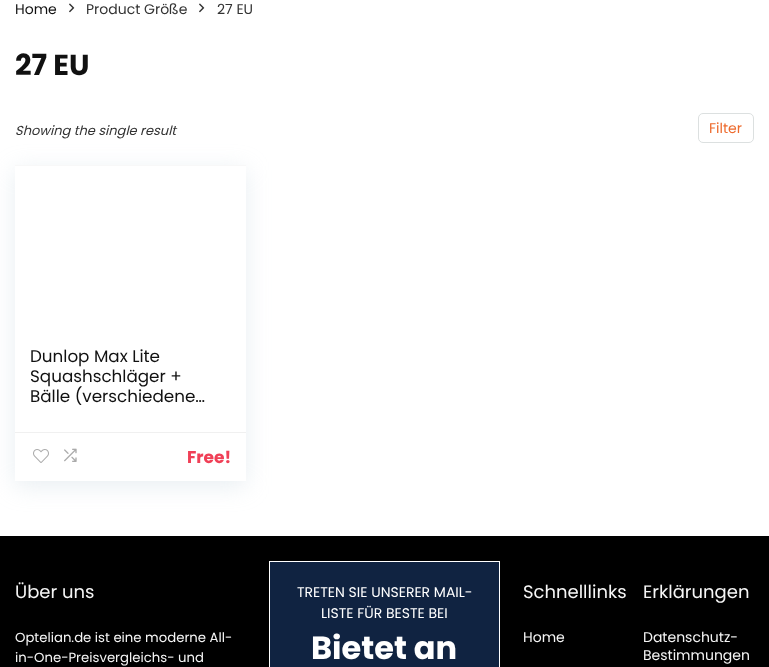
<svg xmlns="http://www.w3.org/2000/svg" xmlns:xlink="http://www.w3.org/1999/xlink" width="769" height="667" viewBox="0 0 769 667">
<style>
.cls-1{font:14px Poppins;fill:#111111}
.cls-2{font:14px Poppins;fill:#333333}
.cls-3{font:bold 29px Poppins;fill:#111111}
.cls-4{font:italic 13px Poppins;fill:#333333}
.cls-5{font:14px Poppins;fill:#ed6b2e}
.cls-6{font:16.75px Poppins;fill:#111111}
.cls-7{font:bold 17px Poppins;fill:#f04057}
.cls-8{font:18px Poppins;fill:#f5f5f5}
.cls-9{font:13.25px Poppins;fill:#f5f5f5}
.cls-10{font:14px Poppins;fill:#ffffff}
.cls-11{font:bold 32px Poppins;fill:#ffffff}
.cls-12{font:14px Poppins;fill:#f5f5f5}
</style>
<defs>
<clipPath id="clip1"><path d="M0 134H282V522H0ZM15 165H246V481H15Z" clip-rule="evenodd"/></clipPath>
</defs>
<rect width="100%" height="100%" fill="#ffffff"/>
<image xlink:href="image0.png" x="69" y="3" width="6" height="10"/>
<image xlink:href="image0.png" x="199" y="3" width="6" height="10"/>
<rect fill="none" stroke="#dce0e0" x="698.5" y="113.5" width="55" height="29" rx="4.5"/>
<g clip-path="url(#clip1)">
<rect fill="#bccfdb" fill-opacity="0.35" filter="blur(11.5px)" x="15" y="170" width="231" height="316"/>
</g>
<rect fill="#f8f8f8" x="15" y="165" width="231" height="1"/>
<rect fill="#f0f0f0" x="15" y="432" width="231" height="1"/>
<image xlink:href="image1.png" x="33" y="449" width="16" height="14"/>
<image xlink:href="image2.png" x="64" y="448" width="13" height="14"/>
<rect fill="#000000" x="0" y="536" width="769" height="131"/>
<rect fill="#102341" stroke="#ffffff" x="269.5" y="561.5" width="230" height="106"/>
<text class="cls-1" x="15" y="14">Home</text>
<text class="cls-2" x="86" y="14">Product Größe</text>
<text class="cls-2" x="217" y="14">27 EU</text>
<text class="cls-3" x="15" y="75">27 EU</text>
<text class="cls-4" x="15" y="135">Showing the single result</text>
<text class="cls-5" x="709" y="133">Filter</text>
<text class="cls-6"><tspan x="30" y="362">Dunlop Max Lite</tspan><tspan x="30" y="382">Squashschläger +</tspan><tspan x="30" y="402">Bälle (verschiedene…</tspan></text>
<text class="cls-7" x="187" y="463">Free!</text>
<text class="cls-8" x="15" y="598">Über uns</text>
<text class="cls-9"><tspan x="15" y="642">Optelian.de ist eine moderne All-</tspan><tspan x="15" y="662">in-One-Preisvergleichs- und</tspan></text>
<text class="cls-10" x="297" y="597">TRETEN SIE UNSERER MAIL-</text>
<text class="cls-10" x="321" y="618">LISTE FÜR BESTE BEI</text>
<text class="cls-11" x="311" y="659">Bietet an</text>
<text class="cls-8" x="523" y="598">Schnelllinks</text>
<text class="cls-12" x="523" y="642">Home</text>
<text class="cls-8" x="643" y="598">Erklärungen</text>
<text class="cls-12"><tspan x="643" y="642">Datenschutz-</tspan><tspan x="643" y="660">Bestimmungen</tspan></text>
</svg>
